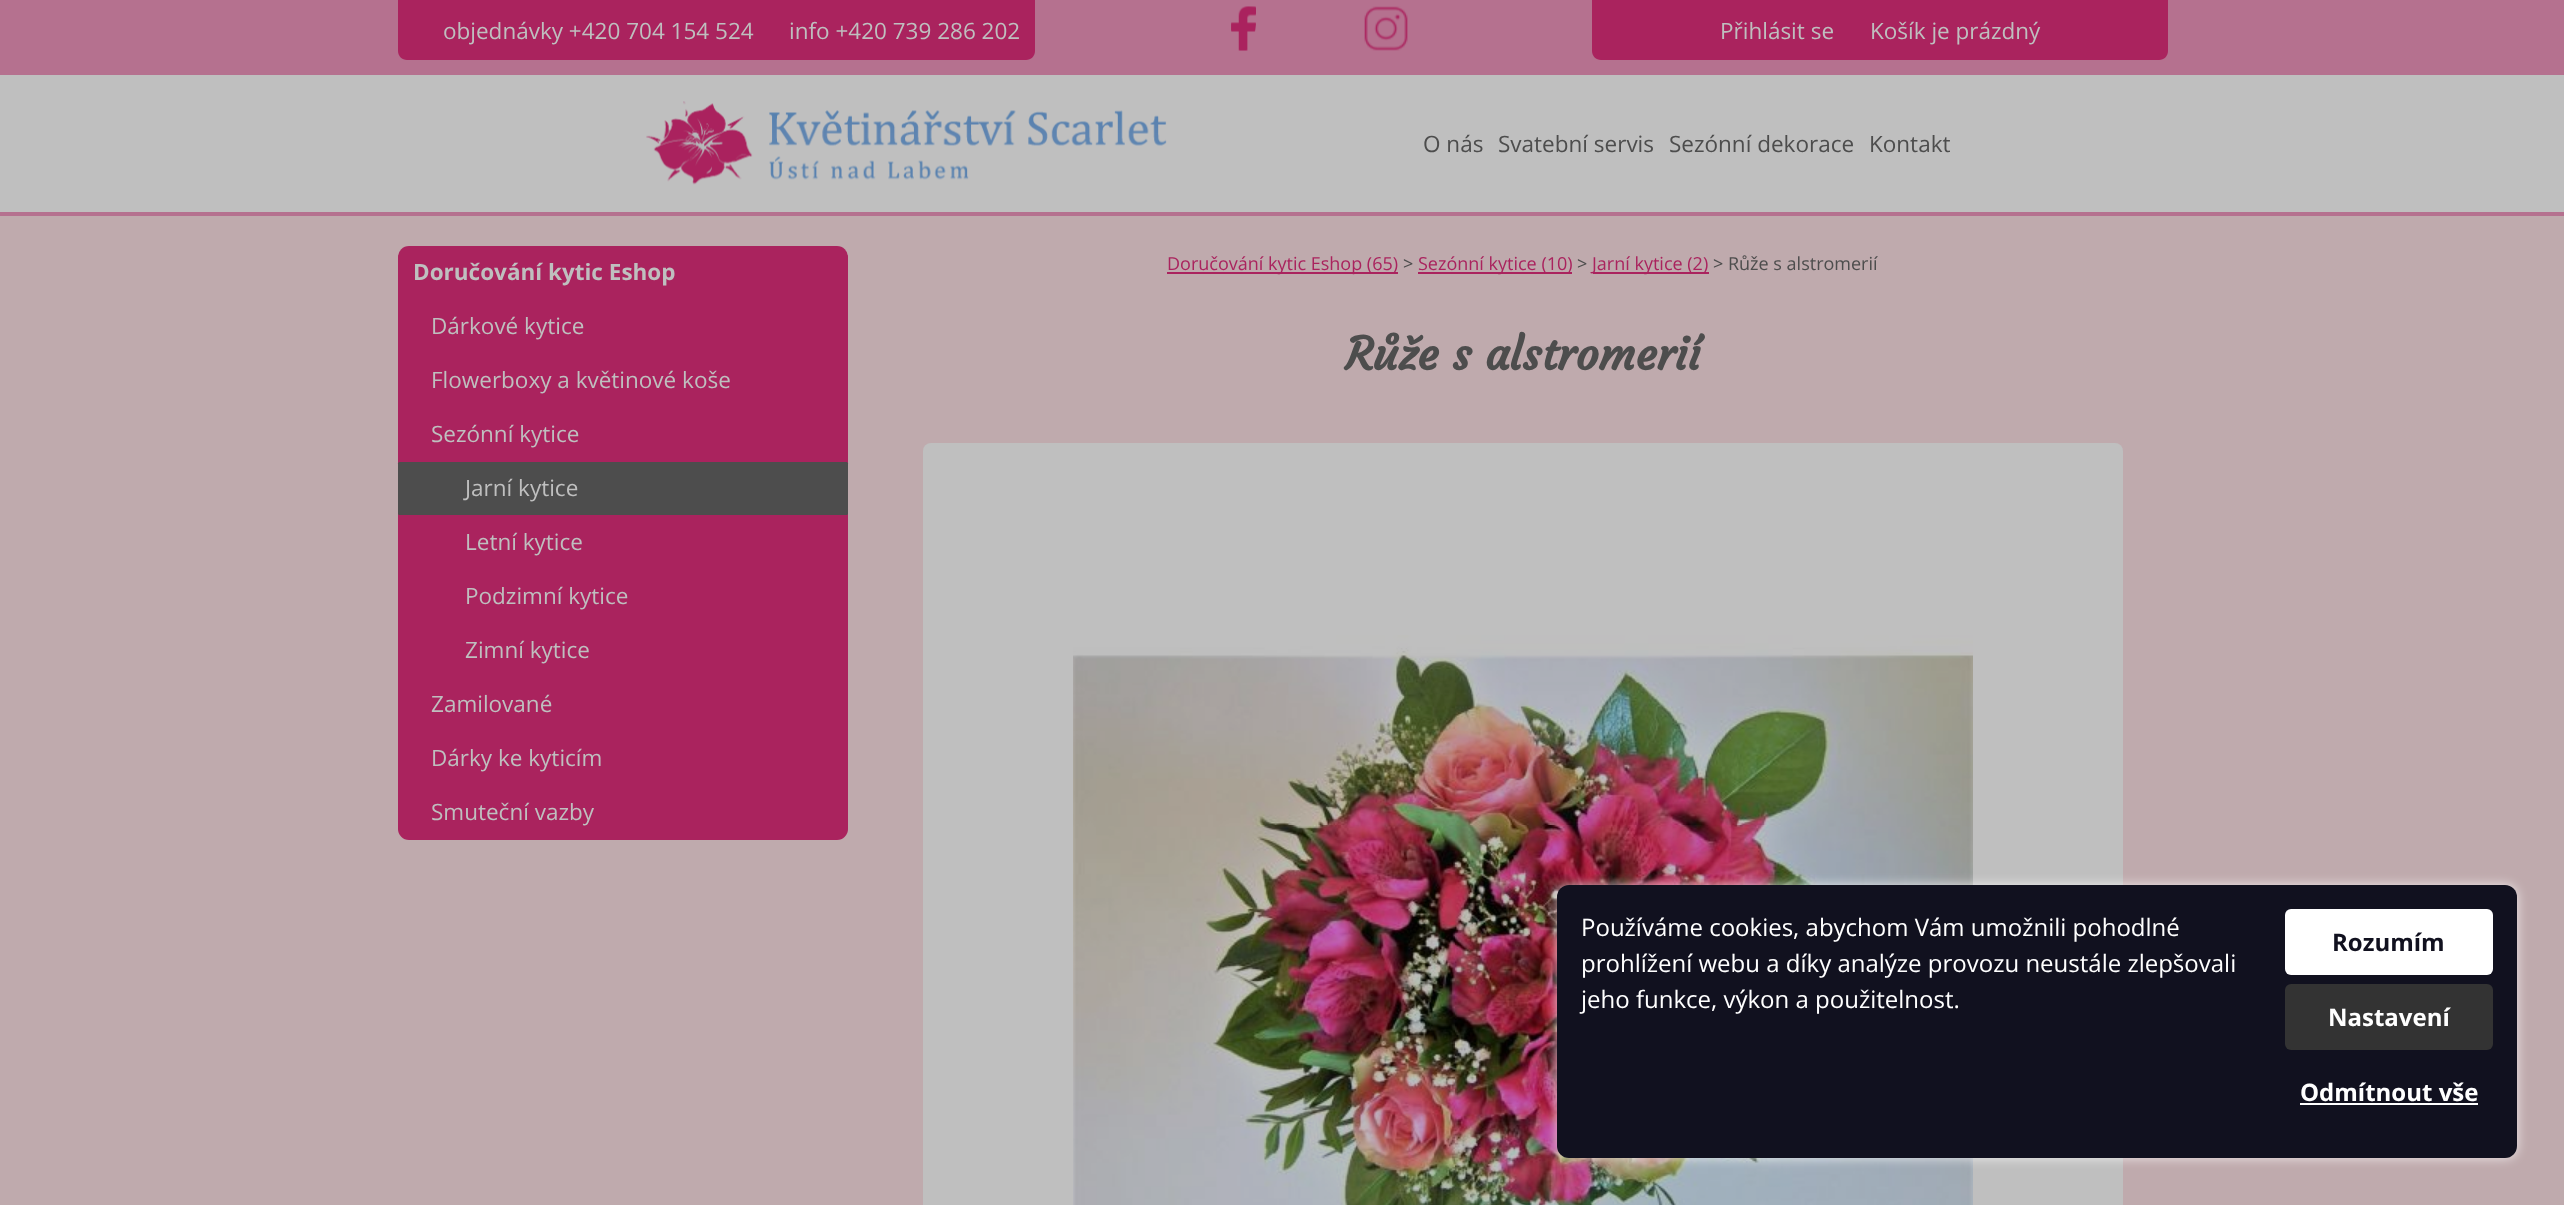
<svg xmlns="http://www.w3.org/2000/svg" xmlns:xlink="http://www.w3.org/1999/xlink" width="2564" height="1205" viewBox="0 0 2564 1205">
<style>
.cls-1{font:22.5px Open Sans;fill:#bfbfbf}
.cls-2{font:22.5px Open Sans;fill:#4d4d4d}
.cls-3{font:bold 22.5px Open Sans;fill:#bfbfbf}
.cls-4{font:18px Open Sans;fill:#aa235e}
.cls-5{font:18px Open Sans;fill:#4d4d4d}
.cls-6{font:bold 45px Courgette;fill:#4d4d4d}
.cls-7{font:24px Open Sans;fill:#ffffff}
.cls-8{font:bold 24px Open Sans;fill:#11111f}
.cls-9{font:bold 24px Open Sans;fill:#ffffff}
</style>
<rect width="100%" height="100%" fill="#bfbfbf"/>
<rect fill="#b5718f" x="0" y="0" width="2564" height="75"/>
<path fill="#aa235e" d="M398 0H1035V51C1035 56 1031 60 1026 60H407C402 60 398 56 398 51Z"/>
<image xlink:href="image0.png" x="1231" y="6" width="25" height="45"/>
<image xlink:href="image1.png" x="1364" y="6" width="44" height="45"/>
<path fill="#aa235e" d="M1592 0H2168V51C2168 56 2164 60 2159 60H1601C1596 60 1592 56 1592 51Z"/>
<rect fill="#b5718f" x="0" y="212" width="2564" height="4"/>
<image xlink:href="image2.png" x="646" y="101" width="521" height="84"/>
<rect fill="#bfaaad" x="0" y="216" width="2564" height="989"/>
<rect fill="#aa235e" x="398" y="246" width="450" height="594" rx="11"/>
<rect fill="#4d4d4d" x="398" y="462" width="450" height="53" rx="1.5"/>
<rect fill="#aa235e" x="1167" y="272" width="231" height="2"/>
<rect fill="#aa235e" x="1418" y="272" width="154" height="2"/>
<rect fill="#aa235e" x="1593" y="272" width="116" height="2"/>
<rect fill="#bfbfbf" x="923" y="443" width="1200" height="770" rx="8"/>
<image xlink:href="image3.png" x="1073" y="635" width="900" height="570"/>
<rect fill="#ffffff" fill-opacity="0.75" filter="blur(6px)" x="1557" y="885" width="960" height="273" rx="12"/>
<rect fill="#11111f" x="1557" y="885" width="960" height="273" rx="12"/>
<rect fill="#ffffff" x="2285" y="909" width="208" height="66" rx="6"/>
<rect fill="#333333" x="2285" y="984" width="208" height="66" rx="6"/>
<rect fill="#ffffff" x="2300" y="1103" width="178" height="2"/>
<text class="cls-1" x="443" y="39">objednávky +420 704 154 524</text>
<text class="cls-1" x="789" y="39">info +420 739 286 202</text>
<text class="cls-1" x="1720" y="39">Přihlásit se</text>
<text class="cls-1" x="1870" y="39">Košík je prázdný</text>
<text class="cls-2" x="1423" y="152">O nás</text>
<text class="cls-2" x="1498" y="152">Svatební servis</text>
<text class="cls-2" x="1669" y="152">Sezónní dekorace</text>
<text class="cls-2" x="1869" y="152">Kontakt</text>
<text class="cls-3" x="413" y="280">Doručování kytic Eshop</text>
<text class="cls-1" x="431" y="334">Dárkové kytice</text>
<text class="cls-1" x="431" y="388">Flowerboxy a květinové koše</text>
<text class="cls-1" x="431" y="442">Sezónní kytice</text>
<text class="cls-1" x="465" y="496">Jarní kytice</text>
<text class="cls-1" x="465" y="550">Letní kytice</text>
<text class="cls-1" x="465" y="604">Podzimní kytice</text>
<text class="cls-1" x="465" y="658">Zimní kytice</text>
<text class="cls-1" x="431" y="712">Zamilované</text>
<text class="cls-1" x="431" y="766">Dárky ke kyticím</text>
<text class="cls-1" x="431" y="820">Smuteční vazby</text>
<text class="cls-4" x="1167" y="270">Doručování kytic Eshop (65)</text>
<text class="cls-5" x="1403" y="270">&gt;</text>
<text class="cls-4" x="1418" y="270">Sezónní kytice (10)</text>
<text class="cls-5" x="1577" y="270">&gt;</text>
<text class="cls-4" x="1592" y="270">Jarní kytice (2)</text>
<text class="cls-5" x="1713" y="270">&gt; Růže s alstromerií</text>
<text class="cls-6" x="1345" y="370">Růže s alstromerií</text>
<text class="cls-7"><tspan x="1581" y="936">Používáme cookies, abychom Vám umožnili pohodlné</tspan><tspan x="1581" y="972">prohlížení webu a díky analýze provozu neustále zlepšovali</tspan><tspan x="1581" y="1008">jeho funkce, výkon a použitelnost.</tspan></text>
<text class="cls-8" x="2332" y="951">Rozumím</text>
<text class="cls-9" x="2328" y="1026">Nastavení</text>
<text class="cls-9" x="2300" y="1101">Odmítnout vše</text>
</svg>
